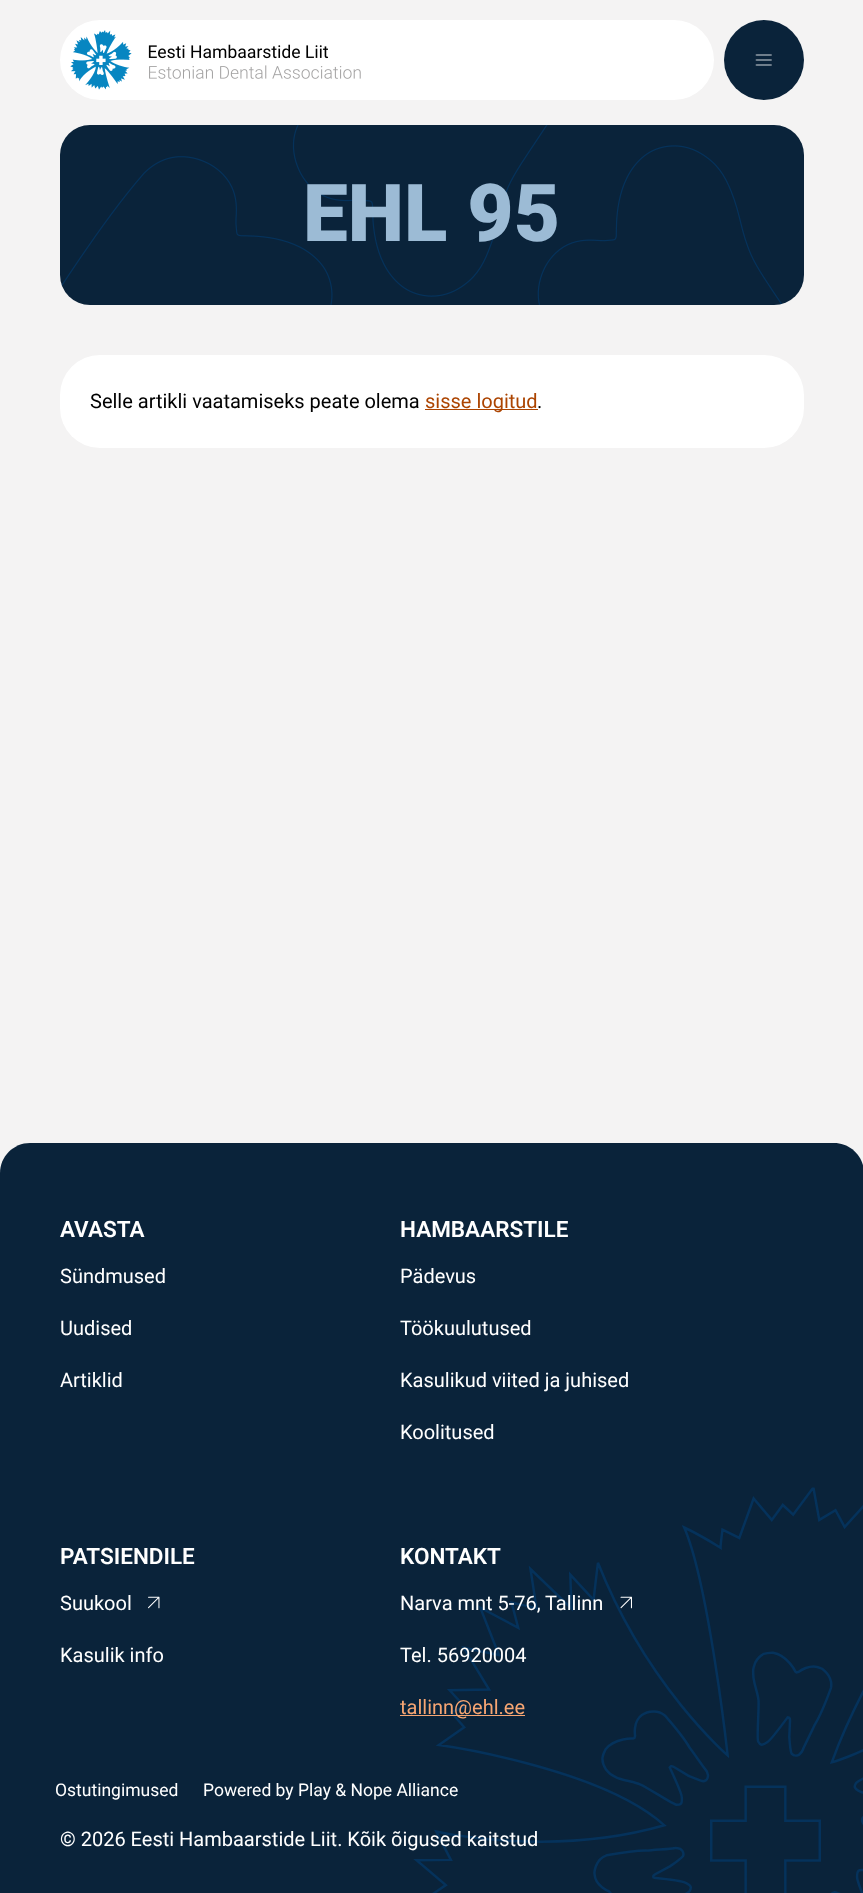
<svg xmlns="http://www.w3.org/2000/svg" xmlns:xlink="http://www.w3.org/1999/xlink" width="863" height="1893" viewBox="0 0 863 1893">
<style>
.cls-1{font:900 80px Roboto;fill:#9cbbd5}
.cls-2{font:20px Roboto;fill:#000000}
.cls-3{font:20px Roboto;fill:#ac4400}
.cls-4{font:600 22.5px Roboto;fill:#ffffff}
.cls-5{font:20px Roboto;fill:#ffffff}
.cls-6{font:20px Roboto;fill:#f7a673}
.cls-7{font:17.5px Roboto;fill:#ffffff}
</style>
<rect width="100%" height="100%" fill="#f4f3f3"/>
<rect fill="#ffffff" x="60" y="20" width="654" height="80" rx="40"/>
<image xlink:href="image0.png" x="70" y="30" width="291" height="60"/>
<circle fill="#0a233a" cx="764" cy="60" r="40"/>
<image xlink:href="image1.png" x="755" y="54" width="17" height="12"/>
<rect fill="#0a233a" x="60" y="125" width="744" height="180" rx="30"/>
<image xlink:href="image2.png" x="61" y="125" width="721" height="180"/>
<rect fill="#ffffff" x="60" y="355" width="744" height="93" rx="40"/>
<rect fill="#ac4400" x="425" y="409" width="113" height="1"/>
<path fill="#0a233a" d="M30 1143H834C850.5 1143 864 1156.5 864 1173V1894H0V1173C0 1156.5 13.5 1143 30 1143Z"/>
<image xlink:href="image3.png" x="148" y="1596" width="12" height="13"/>
<image xlink:href="image5.png" x="413" y="1487" width="450" height="406"/>
<image xlink:href="image4.png" x="620" y="1596" width="12" height="13"/>
<rect fill="#f7a673" x="400" y="1715" width="125" height="1"/>
<text class="cls-1" x="303" y="241">EHL 95</text>
<text class="cls-2" x="90" y="408">Selle artikli vaatamiseks peate olema</text>
<text class="cls-3" x="425" y="408">sisse logitud</text>
<text class="cls-2" x="537" y="408">.</text>
<text class="cls-4" x="60" y="1237">AVASTA</text>
<text class="cls-5" x="60" y="1283">Sündmused</text>
<text class="cls-5" x="60" y="1335">Uudised</text>
<text class="cls-5" x="60" y="1387">Artiklid</text>
<text class="cls-4" x="400" y="1237">HAMBAARSTILE</text>
<text class="cls-5" x="400" y="1283">Pädevus</text>
<text class="cls-5" x="400" y="1335">Töökuulutused</text>
<text class="cls-5" x="400" y="1387">Kasulikud viited ja juhised</text>
<text class="cls-5" x="400" y="1439">Koolitused</text>
<text class="cls-4" x="60" y="1564">PATSIENDILE</text>
<text class="cls-5" x="60" y="1610">Suukool</text>
<text class="cls-5" x="60" y="1662">Kasulik info</text>
<text class="cls-4" x="400" y="1564">KONTAKT</text>
<text class="cls-5" x="400" y="1610">Narva mnt 5-76,</text>
<text class="cls-5" x="545" y="1610">Tallinn</text>
<text class="cls-5" x="400" y="1662">Tel. 56920004</text>
<text class="cls-6" x="400" y="1714">tallinn@ehl.ee</text>
<text class="cls-7" x="55" y="1796">Ostutingimused</text>
<text class="cls-7" x="203" y="1796">Powered by Play &amp; Nope Alliance</text>
<text class="cls-5" x="60" y="1846">© 2026 Eesti Hambaarstide Liit. Kõik õigused kaitstud</text>
</svg>
